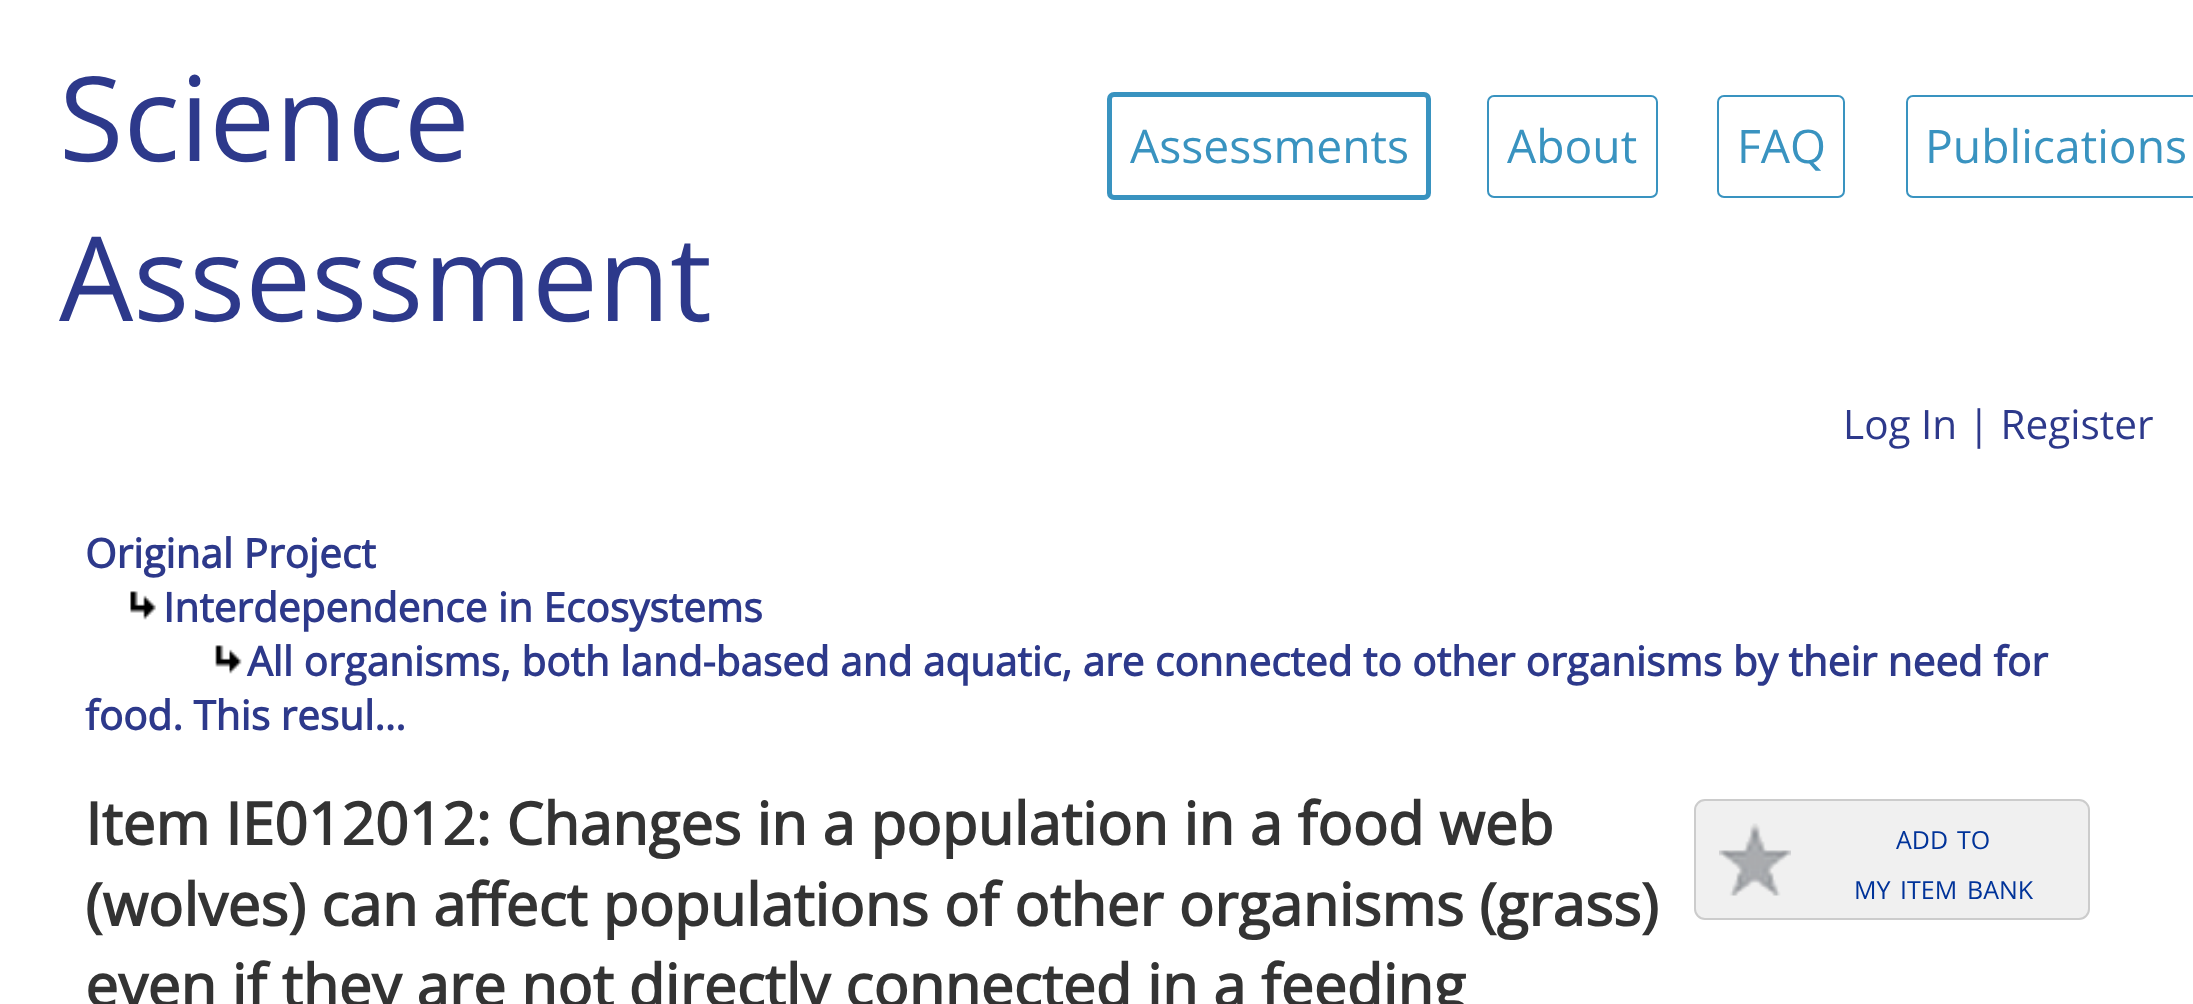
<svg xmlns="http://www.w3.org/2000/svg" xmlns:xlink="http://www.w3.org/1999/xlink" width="2193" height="1004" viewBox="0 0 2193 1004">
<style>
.cls-1{font:117.5px Open Sans;fill:#2d398b}
.cls-2{font:46.25px Open Sans;fill:#3993c0}
.cls-3{font:40.5px Open Sans;fill:#2d398b}
.cls-4{font:bold 40.5px Open Sans;fill:#2d398b}
.cls-5{font:bold 58.75px Open Sans;fill:#333333}
.cls-6{font:25px Open Sans;fill:#003399}
</style>
<rect width="100%" height="100%" fill="#ffffff"/>
<rect fill="none" stroke="#3993c0" stroke-width="5" x="1109.5" y="94.5" width="319" height="103" rx="4.5"/>
<rect fill="none" stroke="#3993c0" stroke-width="2" x="1488" y="96" width="169" height="101" rx="6"/>
<rect fill="none" stroke="#3993c0" stroke-width="2" x="1718" y="96" width="126" height="101" rx="6"/>
<rect fill="none" stroke="#3993c0" stroke-width="2" x="1907" y="96" width="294" height="101" rx="6"/>
<image xlink:href="image0.png" x="130" y="591" width="26" height="29"/>
<image xlink:href="image1.png" x="215" y="645" width="27" height="29"/>
<rect fill="#f0f0f0" stroke="#cccccc" stroke-width="2" x="1695" y="800" width="394" height="119" rx="10"/>
<image xlink:href="image2.png" x="1719" y="823" width="72" height="73"/>
<text class="cls-1"><tspan x="59" y="161">Science</tspan><tspan x="59" y="321">Assessment</tspan></text>
<text class="cls-2" x="1130" y="163">Assessments</text>
<text class="cls-2" x="1507" y="163">About</text>
<text class="cls-2" x="1737" y="163">FAQ</text>
<text class="cls-2" x="1925" y="163">Publications</text>
<text class="cls-3" x="1843" y="439">Log In | Register</text>
<text class="cls-4" x="85" y="568">Original Project</text>
<text class="cls-4" x="163" y="622">Interdependence in Ecosystems</text>
<text class="cls-4" x="247" y="676">All organisms, both land-based and aquatic, are connected to other organisms by their need for</text>
<text class="cls-4" x="85" y="730">food. This resul…</text>
<text class="cls-5"><tspan x="85" y="845">Item IE012012: Changes in a population in a food web</tspan><tspan x="85" y="926">(wolves) can affect populations of other organisms (grass)</tspan><tspan x="85" y="1007">even if they are not directly connected in a feeding</tspan></text>
<text class="cls-6" x="1896" y="849">ADD</text>
<text class="cls-6" x="1957" y="849">TO</text>
<text class="cls-6" x="1854" y="899">MY</text>
<text class="cls-6" x="1900" y="899">ITEM</text>
<text class="cls-6" x="1967" y="899">BANK</text>
</svg>
